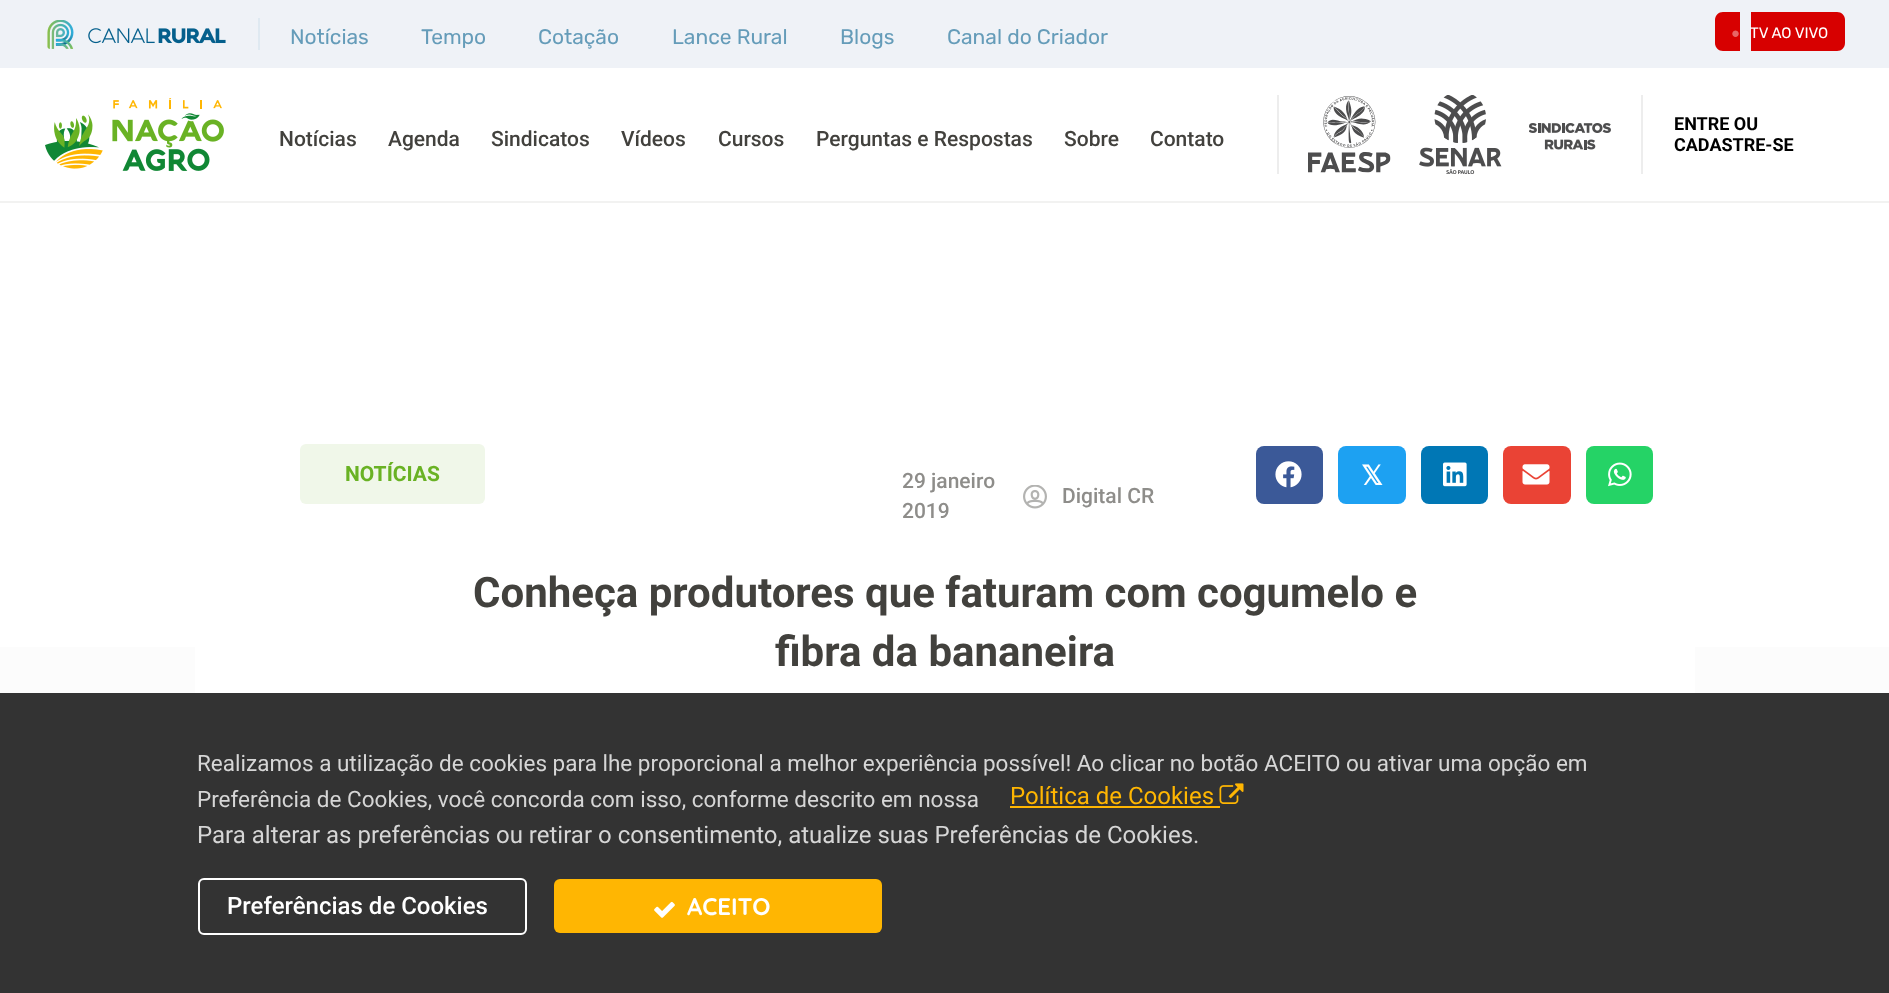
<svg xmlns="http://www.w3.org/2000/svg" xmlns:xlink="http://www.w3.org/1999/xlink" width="1889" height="993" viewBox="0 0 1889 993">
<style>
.cls-1{font:21px Rubik;fill:#659cb9}
.cls-2{font:15px Liberation Sans;fill:#e76666}
.cls-3{font:15px Rubik;fill:#ffffff}
.cls-4{font:500 21px Roboto;fill:#42413d}
.cls-5{font:bold 18px Roboto;fill:#000000}
.cls-6{font:bold 21px Roboto;fill:#69b224}
.cls-7{font:500 21px Roboto;fill:#8e8d8a}
.cls-8{font:bold 27px DejaVu Sans;fill:#ffffff}
.cls-9{font:bold 42px Roboto;fill:#42413d}
.cls-10{font:22.5px Roboto;fill:#d6d6d6}
.cls-11{font:24px Roboto;fill:#ffb602}
.cls-12{font:24px Roboto;fill:#d6d6d6}
.cls-13{font:500 24px Roboto;fill:#ffffff}
.cls-14{font:300 24px Quicksand;fill:#ffffff}
</style>
<rect width="100%" height="100%" fill="#ffffff"/>
<rect fill="#eff2f7" x="0" y="0" width="1889" height="68"/>
<rect fill="#dfe9f1" x="258" y="18" width="2" height="32"/>
<image xlink:href="image0.png" x="47" y="20" width="179" height="29"/>
<path fill="#d70000" d="M1723 12H1740V51H1723C1718.5 51 1715 47.5 1715 43V20C1715 15.5 1718.5 12 1723 12Z"/>
<path fill="#d70000" d="M1751 12H1837C1841.5 12 1845 15.5 1845 20V43C1845 47.5 1841.5 51 1837 51H1751Z"/>
<rect fill="#f2f2f1" x="0" y="201" width="1889" height="2"/>
<image xlink:href="image1.png" x="45" y="98" width="179" height="73"/>
<rect fill="#ededed" x="1641" y="95" width="2" height="79"/>
<rect fill="#ededed" x="1277" y="95" width="2" height="79"/>
<image xlink:href="image2.png" x="1308" y="96" width="83" height="77"/>
<image xlink:href="image3.png" x="1419" y="95" width="83" height="79"/>
<image xlink:href="image4.png" x="1529" y="123" width="82" height="27"/>
<rect fill="#fcfcfc" x="0" y="647" width="1889" height="46"/>
<rect fill="#ffffff" x="195" y="399" width="1500" height="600" rx="6"/>
<rect fill="#f0f7e9" x="300" y="444" width="185" height="60" rx="6"/>
<image xlink:href="image5.png" x="1023" y="485" width="24" height="24"/>
<rect fill="#3b5998" x="1256" y="446" width="67" height="58" rx="8"/>
<image xlink:href="image6.png" x="1275" y="461" width="27" height="27"/>
<rect fill="#1da1f2" x="1338" y="446" width="68" height="58" rx="8"/>
<rect fill="#0077b5" x="1421" y="446" width="67" height="58" rx="8"/>
<image xlink:href="image7.png" x="1443" y="462" width="24" height="25"/>
<rect fill="#ea4335" x="1503" y="446" width="68" height="58" rx="8"/>
<image xlink:href="image8.png" x="1522" y="464" width="28" height="21"/>
<rect fill="#25d366" x="1586" y="446" width="67" height="58" rx="8"/>
<image xlink:href="image9.png" x="1608" y="462" width="24" height="25"/>
<rect fill="#333333" x="0" y="693" width="1889" height="300"/>
<rect fill="#ffb602" x="1010" y="806" width="210" height="2"/>
<image xlink:href="image10.png" x="1219" y="783" width="25" height="21"/>
<rect fill="none" stroke="#ffffff" stroke-width="2" x="199" y="879" width="327" height="55" rx="5"/>
<rect fill="#ffb602" x="554" y="879" width="328" height="54" rx="6"/>
<image xlink:href="image11.png" x="654" y="901" width="21" height="17"/>
<text class="cls-1" x="290" y="44">Notícias</text>
<text class="cls-1" x="421" y="44">Tempo</text>
<text class="cls-1" x="538" y="44">Cotação</text>
<text class="cls-1" x="672" y="44">Lance Rural</text>
<text class="cls-1" x="840" y="44">Blogs</text>
<text class="cls-1" x="947" y="44">Canal do Criador</text>
<text class="cls-2" x="1731" y="38">●</text>
<text class="cls-3" x="1750" y="38">TV AO VIVO</text>
<text class="cls-4" x="279" y="146">Notícias</text>
<text class="cls-4" x="388" y="146">Agenda</text>
<text class="cls-4" x="491" y="146">Sindicatos</text>
<text class="cls-4" x="621" y="146">Vídeos</text>
<text class="cls-4" x="718" y="146">Cursos</text>
<text class="cls-4" x="816" y="146">Perguntas e Respostas</text>
<text class="cls-4" x="1064" y="146">Sobre</text>
<text class="cls-4" x="1150" y="146">Contato</text>
<text class="cls-5"><tspan x="1674" y="130">ENTRE OU</tspan><tspan x="1674" y="151">CADASTRE-SE</tspan></text>
<text class="cls-6" x="345" y="481">NOTÍCIAS</text>
<text class="cls-7"><tspan x="902" y="488">29 janeiro</tspan><tspan x="902" y="518">2019</tspan></text>
<text class="cls-7" x="1062" y="503">Digital CR</text>
<text class="cls-8" x="1361" y="485">𝕏</text>
<text class="cls-9" x="473" y="607">Conheça produtores que faturam com cogumelo e</text>
<text class="cls-9" x="775" y="666">fibra da bananeira</text>
<text class="cls-10"><tspan x="197" y="771">Realizamos a utilização de cookies para lhe proporcional a melhor experiência possível! Ao clicar no botão ACEITO ou ativar uma opção em</tspan><tspan x="197" y="807">Preferência de Cookies, você concorda com isso, conforme descrito em nossa</tspan></text>
<text class="cls-11" x="1010" y="804">Política de Cookies</text>
<text class="cls-12" x="197" y="843">Para alterar as preferências ou retirar o consentimento, atualize suas Preferências de Cookies.</text>
<text class="cls-13" x="227" y="914">Preferências de Cookies</text>
<text class="cls-14" x="687" y="915">ACEITO</text>
</svg>
